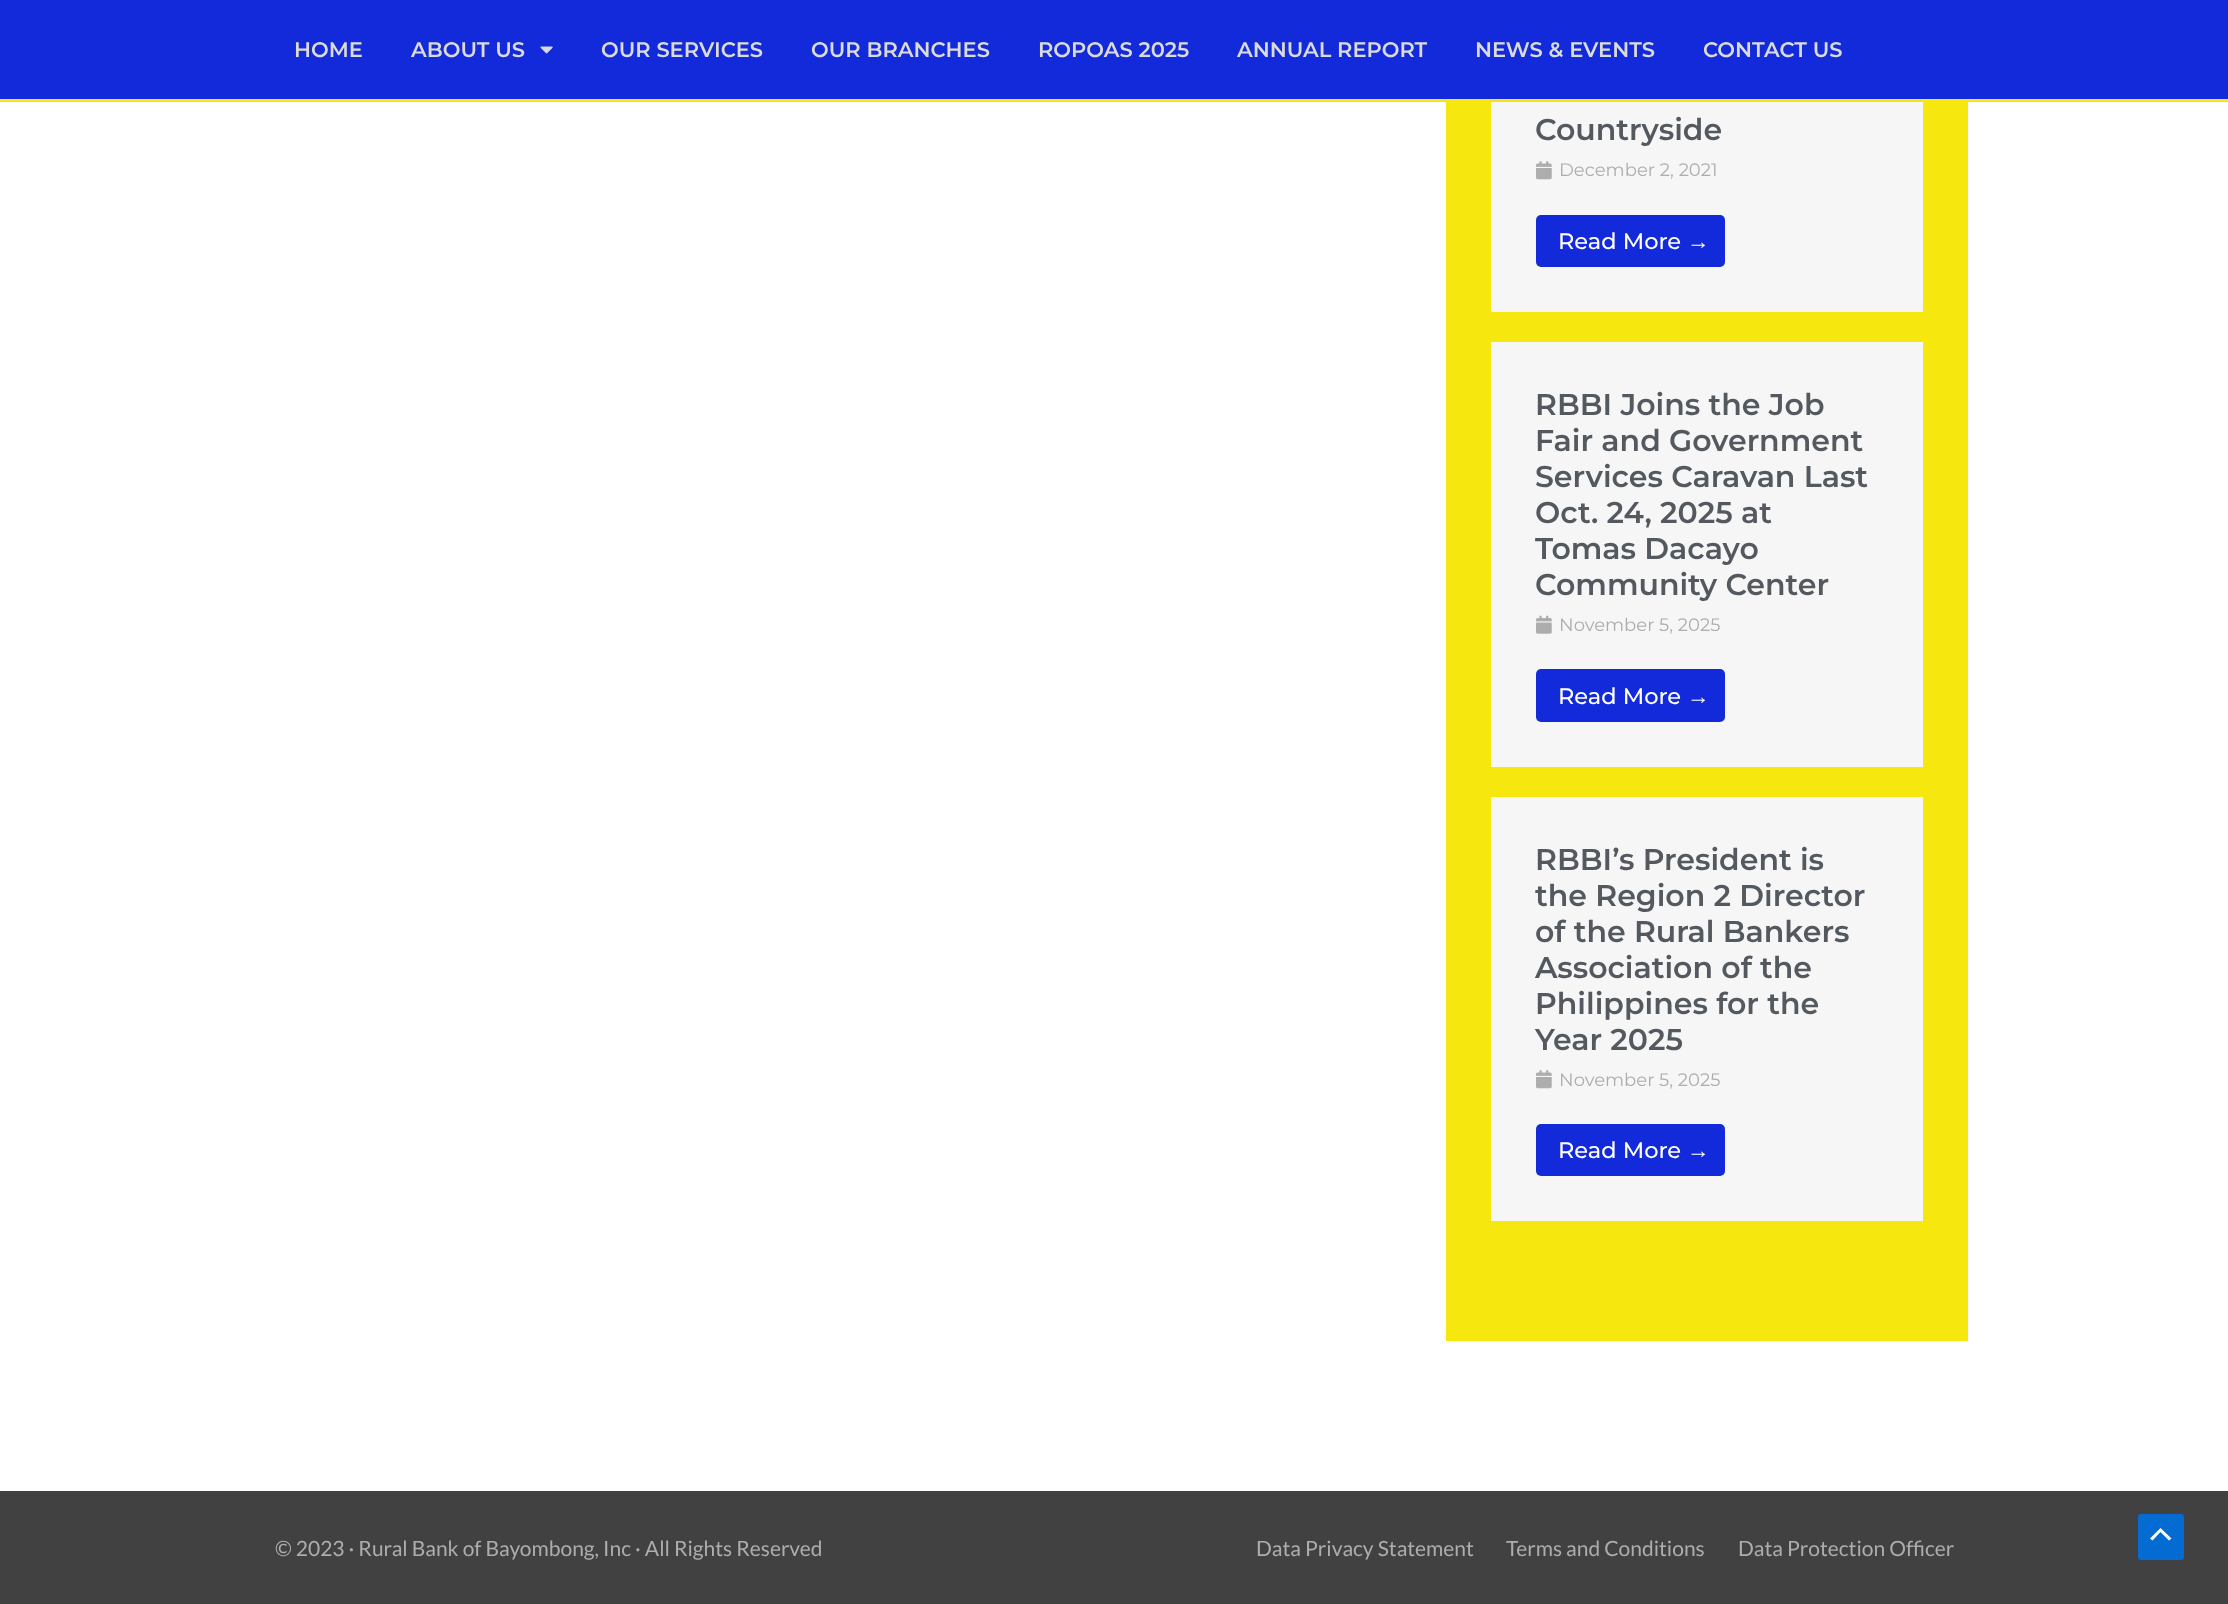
<svg xmlns="http://www.w3.org/2000/svg" xmlns:xlink="http://www.w3.org/1999/xlink" width="2228" height="1604" viewBox="0 0 2228 1604">
<style>
.cls-1{font:600 21px Montserrat;fill:#dbdbdb}
.cls-2{font:600 30px Montserrat;fill:#54595f}
.cls-3{font:18px Montserrat;fill:#adadad}
.cls-4{font:500 22.5px Montserrat;fill:#ffffff}
.cls-5{font:22.5px Liberation Sans;fill:#ffffff}
.cls-6{font:21px Lato;fill:#adadad}
</style>
<rect width="100%" height="100%" fill="#ffffff"/>
<rect fill="#122ada" x="0" y="0" width="2228" height="99"/>
<rect fill="#f6e80e" x="0" y="99" width="2228" height="3"/>
<image xlink:href="image0.png" x="540" y="46" width="13" height="8"/>
<rect fill="#f6e80e" x="1446" y="102" width="522" height="1239"/>
<rect fill="#f6f6f6" x="1491" y="102" width="432" height="210"/>
<image xlink:href="image1.png" x="1536" y="161" width="16" height="19"/>
<rect fill="#122ada" x="1536" y="215" width="189" height="52" rx="5"/>
<rect fill="#f6f6f6" x="1491" y="342" width="432" height="425"/>
<image xlink:href="image2.png" x="1536" y="615" width="16" height="19"/>
<rect fill="#122ada" x="1536" y="669" width="189" height="53" rx="5"/>
<rect fill="#f6f6f6" x="1491" y="797" width="432" height="424"/>
<image xlink:href="image1.png" x="1536" y="1070" width="16" height="19"/>
<rect fill="#122ada" x="1536" y="1124" width="189" height="52" rx="5"/>
<rect fill="#414141" x="0" y="1491" width="2228" height="113"/>
<rect fill="#046bd2" x="2138" y="1514" width="46" height="46" rx="3"/>
<path fill="#ffffff" d="M2171.5 1538.5L2160.5 1528L2150 1538.5L2152.5 1540.5L2160.5 1532L2169 1540.5Z"/>
<text class="cls-1" x="294" y="57">HOME</text>
<text class="cls-1" x="411" y="57">ABOUT US</text>
<text class="cls-1" x="601" y="57">OUR SERVICES</text>
<text class="cls-1" x="811" y="57">OUR BRANCHES</text>
<text class="cls-1" x="1038" y="57">ROPOAS 2025</text>
<text class="cls-1" x="1237" y="57">ANNUAL REPORT</text>
<text class="cls-1" x="1475" y="57">NEWS &amp; EVENTS</text>
<text class="cls-1" x="1703" y="57">CONTACT US</text>
<text class="cls-2" x="1535" y="140">Countryside</text>
<text class="cls-3" x="1559" y="176">December 2, 2021</text>
<text class="cls-4" x="1558" y="249">Read More</text>
<text class="cls-5" x="1687" y="249">→</text>
<text class="cls-2"><tspan x="1535" y="415">RBBI Joins the Job</tspan><tspan x="1535" y="451">Fair and Government</tspan><tspan x="1535" y="487">Services Caravan Last</tspan><tspan x="1535" y="523">Oct. 24, 2025 at</tspan><tspan x="1535" y="559">Tomas Dacayo</tspan><tspan x="1535" y="595">Community Center</tspan></text>
<text class="cls-3" x="1559" y="631">November 5, 2025</text>
<text class="cls-4" x="1558" y="704">Read More</text>
<text class="cls-5" x="1687" y="704">→</text>
<text class="cls-2"><tspan x="1535" y="870">RBBI’s President is</tspan><tspan x="1535" y="906">the Region 2 Director</tspan><tspan x="1535" y="942">of the Rural Bankers</tspan><tspan x="1535" y="978">Association of the</tspan><tspan x="1535" y="1014">Philippines for the</tspan><tspan x="1535" y="1050">Year 2025</tspan></text>
<text class="cls-3" x="1559" y="1086">November 5, 2025</text>
<text class="cls-4" x="1558" y="1158">Read More</text>
<text class="cls-5" x="1687" y="1158">→</text>
<text class="cls-6" x="275" y="1556">© 2023 · Rural Bank of Bayombong, Inc · All Rights Reserved</text>
<text class="cls-6" x="1256" y="1556">Data Privacy Statement</text>
<text class="cls-6" x="1506" y="1556">Terms and Conditions</text>
<text class="cls-6" x="1738" y="1556">Data Protection Officer</text>
</svg>
